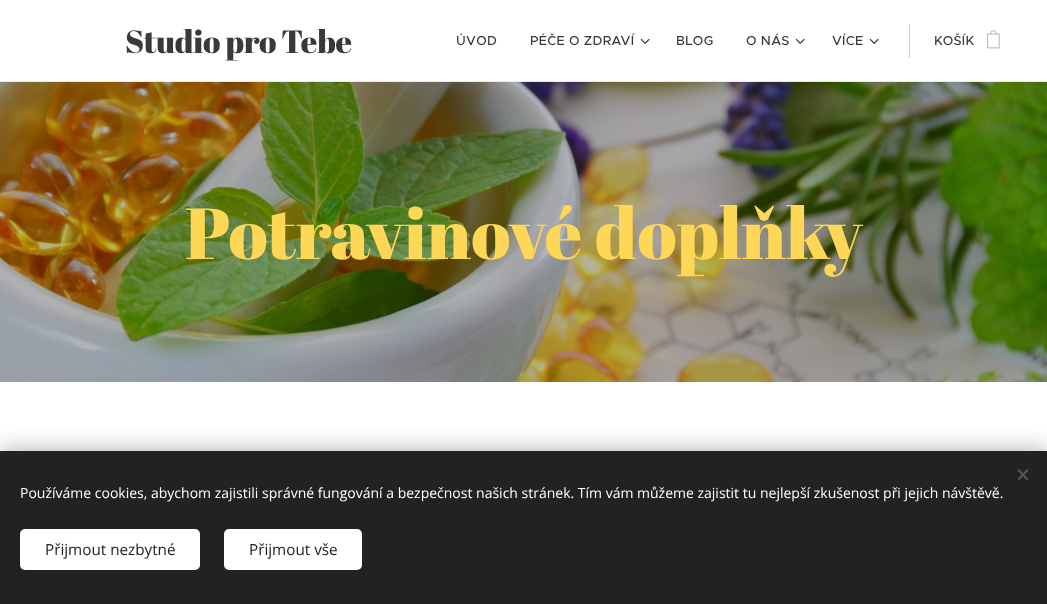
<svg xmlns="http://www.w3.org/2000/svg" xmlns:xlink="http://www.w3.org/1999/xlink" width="1047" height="604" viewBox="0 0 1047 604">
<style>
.cls-1{font:32px Abril Fatface;letter-spacing:-0.4px;fill:#393939}
.cls-2{font:500 13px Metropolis;letter-spacing:0.3px;fill:#393939}
.cls-3{font:72px Abril Fatface;fill:#ffd757}
.cls-4{font:14px Open Sans;fill:#ffffff}
.cls-5{font:15.25px Open Sans;fill:#222222}
</style>
<rect width="100%" height="100%" fill="#ffffff"/>
<image xlink:href="image0.png" x="640" y="38" width="10" height="6"/>
<image xlink:href="image0.png" x="795" y="38" width="10" height="6"/>
<image xlink:href="image0.png" x="869" y="38" width="10" height="6"/>
<rect fill="#d1d1d1" x="909" y="24" width="1" height="34"/>
<image xlink:href="image1.png" x="987" y="30" width="13" height="19"/>
<rect fill="#e8e8e8" x="0" y="81" width="1047" height="1"/>
<image xlink:href="image2.png" x="0" y="82" width="1047" height="300"/>
<rect fill="#000000" fill-opacity="0.33" filter="blur(12.5px)" x="0" y="451" width="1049" height="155"/>
<rect fill="#222222" x="0" y="451" width="1047" height="153"/>
<path fill="#555555" d="M1017.5 479L1027 469L1028.5 470.5L1019 480.5Z"/>
<path fill="#555555" d="M1019 469L1028.5 479L1027 480.5L1017.5 470.5Z"/>
<rect fill="#ffffff" x="20" y="529" width="180" height="41" rx="5"/>
<rect fill="#ffffff" x="224" y="529" width="138" height="41" rx="5"/>
<text class="cls-1" x="125" y="53">Studio pro Tebe</text>
<text class="cls-2" x="456" y="45">ÚVOD</text>
<text class="cls-2" x="530" y="45">PÉČE O ZDRAVÍ</text>
<text class="cls-2" x="676" y="45">BLOG</text>
<text class="cls-2" x="746" y="45">O NÁS</text>
<text class="cls-2" x="832" y="45">VÍCE</text>
<text class="cls-2" x="934" y="45">KOŠÍK</text>
<text class="cls-3" x="185" y="259">Potravinové doplňky</text>
<text class="cls-4" x="20" y="498">Používáme cookies, abychom zajistili správné fungování a bezpečnost našich stránek. Tím vám můžeme zajistit tu nejlepší zkušenost při jejich návštěvě.</text>
<text class="cls-5" x="45" y="555">Přijmout nezbytné</text>
<text class="cls-5" x="249" y="555">Přijmout vše</text>
</svg>
